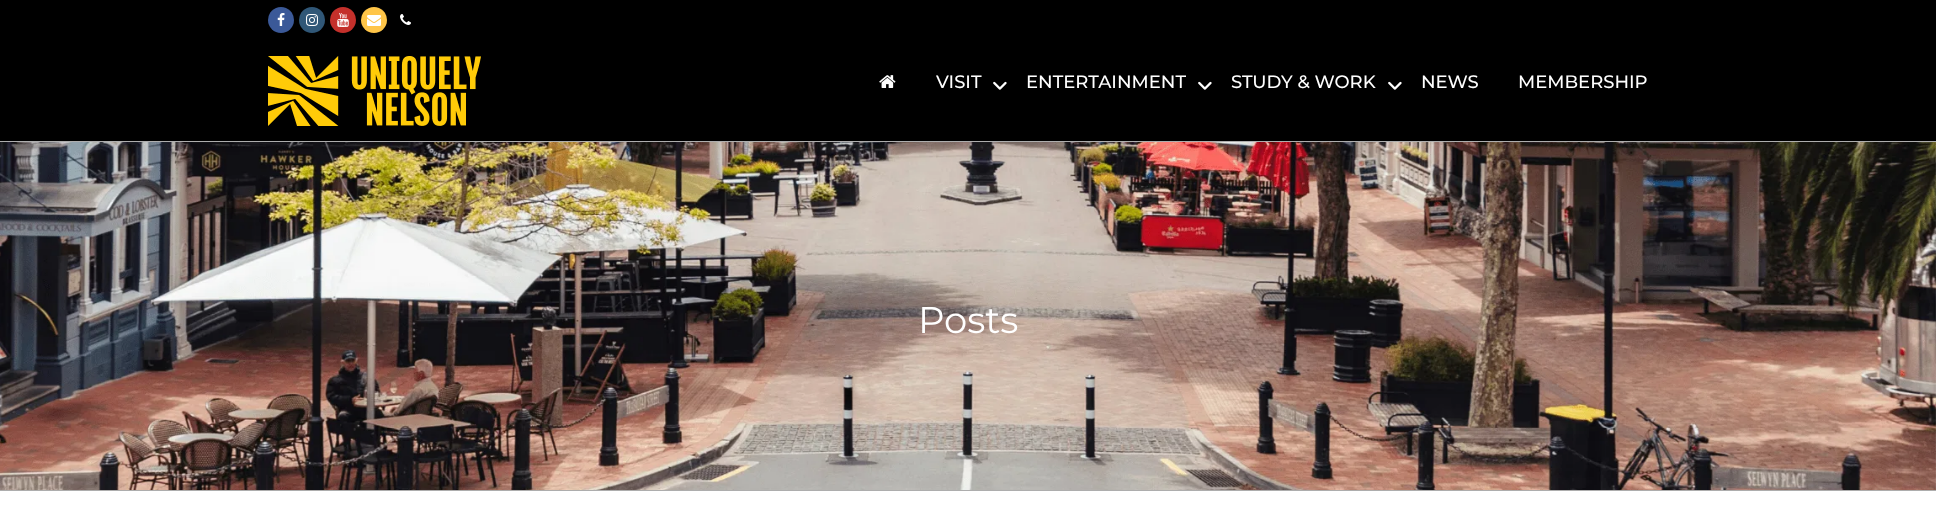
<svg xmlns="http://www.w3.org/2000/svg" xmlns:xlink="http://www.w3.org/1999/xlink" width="1936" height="505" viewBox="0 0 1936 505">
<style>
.cls-1{font:500 18px Montserrat;fill:#ffffff}
.cls-2{font:37px Montserrat;fill:#ffffff}
</style>
<rect width="100%" height="100%" fill="#ffffff"/>
<rect fill="#000000" x="0" y="0" width="1936" height="141"/>
<circle fill="#3b5998" cx="281" cy="20" r="13"/>
<image xlink:href="image0.png" x="277" y="13" width="8" height="13"/>
<circle fill="#305777" cx="312" cy="20" r="13"/>
<image xlink:href="image1.png" x="306" y="14" width="12" height="12"/>
<circle fill="#c4302b" cx="343" cy="20" r="13"/>
<image xlink:href="image2.png" x="337" y="13" width="12" height="14"/>
<circle fill="#ffc548" cx="374" cy="20" r="13"/>
<image xlink:href="image3.png" x="367" y="15" width="14" height="11"/>
<image xlink:href="image4.png" x="400" y="14" width="11" height="11"/>
<image xlink:href="image5.png" x="268" y="56" width="213" height="70"/>
<image xlink:href="image6.png" x="879" y="75" width="17" height="13"/>
<image xlink:href="image7.png" x="993" y="81" width="14" height="9"/>
<image xlink:href="image7.png" x="1198" y="81" width="14" height="9"/>
<image xlink:href="image7.png" x="1388" y="81" width="14" height="9"/>
<image xlink:href="image8.png" x="0" y="142" width="1936" height="348"/>
<rect fill="#adadad" x="0" y="141" width="1936" height="1"/>
<rect fill="#adadad" x="0" y="490" width="1936" height="1"/>
<text class="cls-1" x="936" y="88">VISIT</text>
<text class="cls-1" x="1026" y="88">ENTERTAINMENT</text>
<text class="cls-1" x="1231" y="88">STUDY &amp; WORK</text>
<text class="cls-1" x="1421" y="88">NEWS</text>
<text class="cls-1" x="1518" y="88">MEMBERSHIP</text>
<text class="cls-2" x="918" y="333">Posts</text>
</svg>
